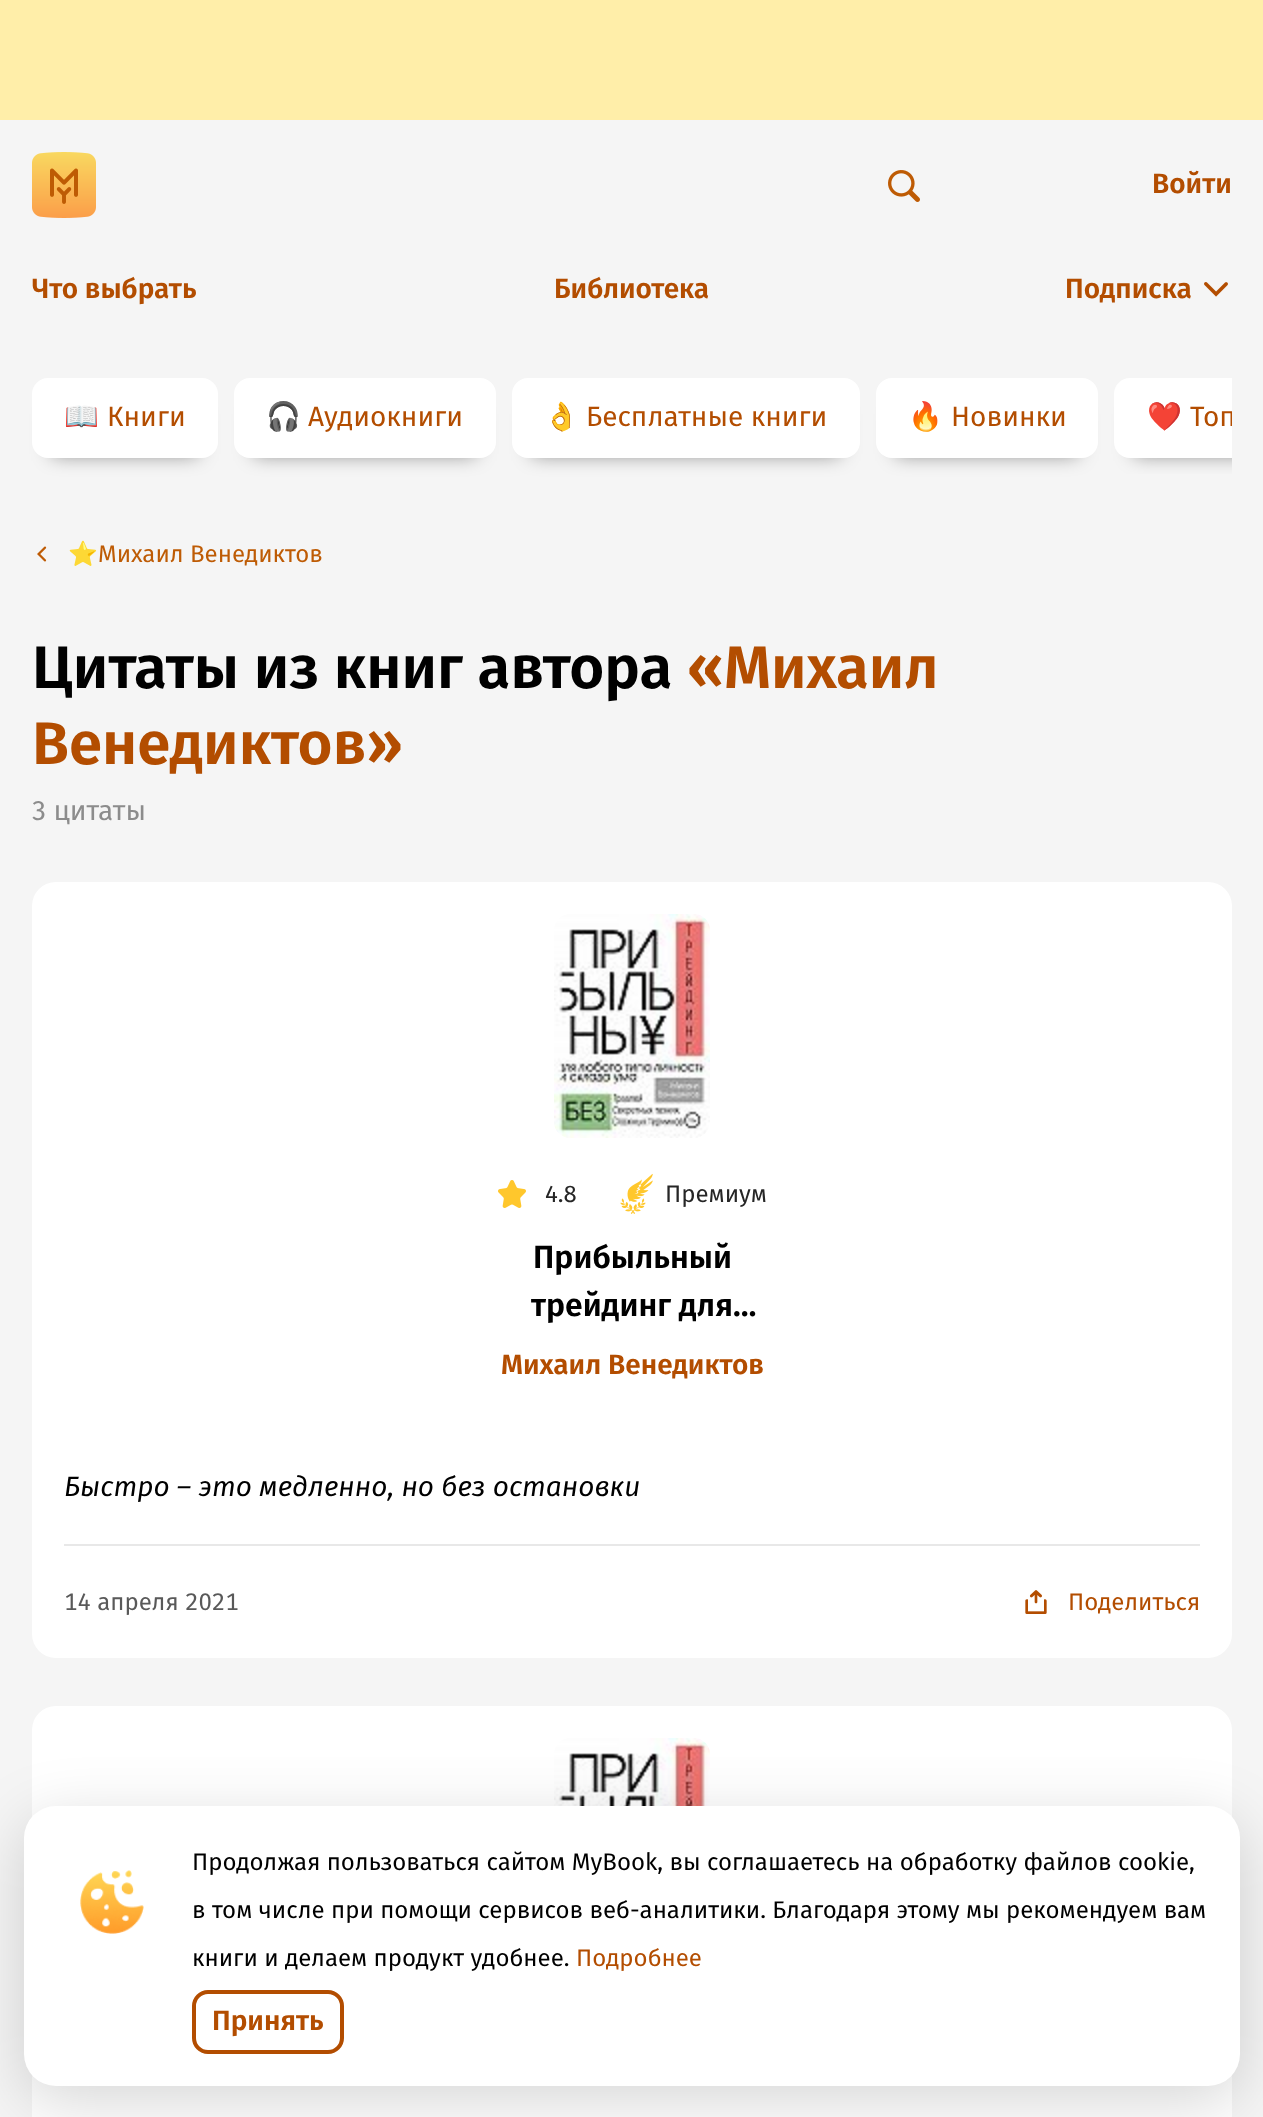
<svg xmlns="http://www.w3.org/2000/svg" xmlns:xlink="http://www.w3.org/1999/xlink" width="1263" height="2117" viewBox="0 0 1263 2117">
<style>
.cls-1{font:600 28px Fira Sans;fill:#b34d00}
.cls-2{font:28px Noto Color Emoji;fill:#ffc72c}
.cls-3{font:28px Fira Sans;fill:#b34d00}
.cls-4{font:24px Fira Sans;fill:#000000}
.cls-5{font:24px Fira Sans;fill:#b34d00}
.cls-6{font:24px Noto Sans;fill:#be5b04}
.cls-7{font:24px Fira Sans;fill:#be5b04}
.cls-8{font:600 60px Fira Sans;fill:#000000}
.cls-9{font:600 60px Fira Sans;fill:#b34d00}
.cls-10{font:28px Fira Sans;fill:#8c8c8c}
.cls-11{font:24px Fira Sans;fill:#262626}
.cls-12{font:600 32px Fira Sans;fill:#000000}
.cls-13{font:italic 28px Fira Sans;fill:#000000}
.cls-14{font:24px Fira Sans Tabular;fill:#595959}
</style>
<defs>
<clipPath id="clip1"><rect x="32" y="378" width="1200" height="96"/></clipPath>
<clipPath id="clip2"><rect x="32" y="378" width="1200" height="96"/></clipPath>
</defs>
<rect width="100%" height="100%" fill="#f5f5f5"/>
<rect fill="#ffeea9" x="0" y="0" width="1263" height="120"/>
<image xlink:href="image0.png" x="32" y="152" width="64" height="66"/>
<image xlink:href="image1.png" x="888" y="170" width="32" height="32"/>
<image xlink:href="image2.png" x="1204" y="282" width="24" height="15"/>
<rect fill="#000000" fill-opacity="0.5" filter="blur(10px)" x="52" y="414" width="146" height="40"/>
<rect fill="#ffffff" x="32" y="378" width="186" height="80" rx="16"/>
<rect fill="#000000" fill-opacity="0.5" filter="blur(10px)" x="254" y="414" width="222" height="40"/>
<rect fill="#ffffff" x="234" y="378" width="262" height="80" rx="16"/>
<rect fill="#000000" fill-opacity="0.5" filter="blur(10px)" x="532" y="414" width="308" height="40"/>
<rect fill="#ffffff" x="512" y="378" width="348" height="80" rx="16"/>
<rect fill="#000000" fill-opacity="0.5" filter="blur(10px)" x="896" y="414" width="182" height="40"/>
<rect fill="#ffffff" x="876" y="378" width="222" height="80" rx="16"/>
<g clip-path="url(#clip1)">
<rect fill="#000000" fill-opacity="0.5" filter="blur(10px)" x="1134" y="414" width="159" height="40"/>
</g>
<path fill="#ffffff" d="M1130 378H1232V458H1130C1121 458 1114 451 1114 442V394C1114 385 1121 378 1130 378Z"/>
<rect fill="#ffffff" x="32" y="1706" width="1200" height="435" rx="24"/>
<image xlink:href="image9.png" x="554" y="1738" width="156" height="68"/>
<rect fill="#000000" fill-opacity="0.16" filter="blur(32px)" x="24" y="1822" width="1216" height="280" rx="32"/>
<rect fill="#ffffff" x="24" y="1806" width="1216" height="280" rx="32"/>
<image xlink:href="image3.png" x="80" y="1870" width="64" height="64"/>
<rect fill="none" stroke="#b34d00" stroke-width="4" x="194" y="1992" width="148" height="60" rx="14"/>
<image xlink:href="image4.png" x="37" y="546" width="10" height="16"/>
<rect fill="#ffffff" x="32" y="882" width="1200" height="776" rx="24"/>
<image xlink:href="image5.png" x="554" y="914" width="156" height="224"/>
<image xlink:href="image6.png" x="498" y="1180" width="28" height="28"/>
<image xlink:href="image7.png" x="620" y="1173" width="33" height="41"/>
<rect fill="#e8e8e8" x="64" y="1544" width="1136" height="2"/>
<image xlink:href="image8.png" x="1025" y="1590" width="22" height="24"/>
<text class="cls-1" x="1152" y="193">Войти</text>
<text class="cls-1" x="32" y="298">Что выбрать</text>
<text class="cls-1" x="554" y="298">Библиотека</text>
<text class="cls-1" x="1065" y="298">Подписка</text>
<text class="cls-2" x="64" y="426">📖</text>
<text class="cls-3" x="107" y="426">Книги</text>
<text class="cls-2" x="266" y="426">🎧</text>
<text class="cls-3" x="308" y="426">Аудиокниги</text>
<text class="cls-2" x="544" y="426">👌</text>
<text class="cls-3" x="586" y="426">Бесплатные книги</text>
<text class="cls-2" x="908" y="426">🔥</text>
<text class="cls-3" x="951" y="426">Новинки</text>
<text class="cls-2" x="1147" y="426">❤️</text>
<g clip-path="url(#clip2)">
<text class="cls-3" x="1190" y="426">Топ</text>
</g>
<text class="cls-4" x="192" y="1870">Продолжая пользоваться сайтом MyBook, вы соглашаетесь на обработку файлов cookie,</text>
<text class="cls-4" x="192" y="1918">в том числе при помощи сервисов веб-аналитики. Благодаря этому мы рекомендуем вам</text>
<text class="cls-4" x="192" y="1966">книги и делаем продукт удобнее.</text>
<text class="cls-5" x="576" y="1966">Подробнее</text>
<text class="cls-1" x="212" y="2030">Принять</text>
<text class="cls-6" x="68" y="562">⭐️</text>
<text class="cls-7" x="98" y="562">Михаил Венедиктов</text>
<text class="cls-8" x="32" y="688">Цитаты из книг автора</text>
<text class="cls-9" x="687" y="688">«Михаил</text>
<text class="cls-9" x="32" y="764">Венедиктов»</text>
<text class="cls-10" x="32" y="820">3 цитаты</text>
<text class="cls-11" x="545" y="1202">4.8</text>
<text class="cls-11" x="665" y="1202">Премиум</text>
<text class="cls-12" x="533" y="1268">Прибыльный</text>
<text class="cls-12" x="531" y="1316">трейдинг для…</text>
<text class="cls-1" x="501" y="1374">Михаил Венедиктов</text>
<text class="cls-13" x="64" y="1496">Быстро – это медленно, но без остановки</text>
<text class="cls-14" x="64" y="1610">14 апреля 2021</text>
<text class="cls-5" x="1068" y="1610">Поделиться</text>
</svg>
